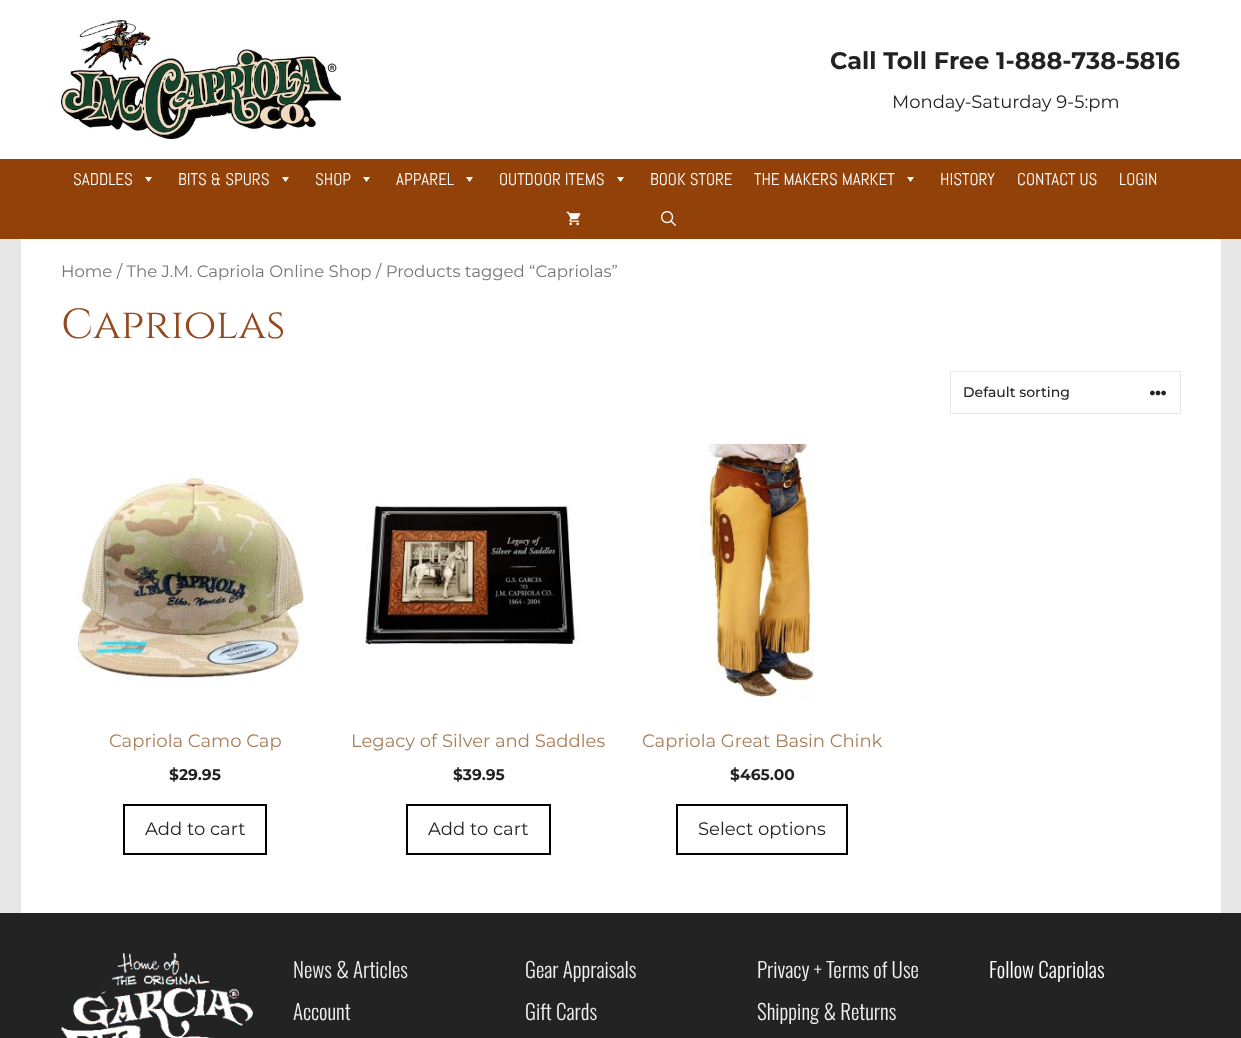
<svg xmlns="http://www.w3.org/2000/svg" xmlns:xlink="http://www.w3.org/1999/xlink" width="1241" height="1038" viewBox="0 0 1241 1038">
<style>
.cls-1{font:bold 24px Montserrat;fill:#222222}
.cls-2{font:18px Montserrat;fill:#222222}
.cls-3{font:17px Abel;fill:#ffffff}
.cls-4{font:16.55px Montserrat;fill:#767676}
.cls-5{font:42px Cinzel;fill:#934a21}
.cls-6{font:500 14px Montserrat;fill:#222222}
.cls-7{font:18px Montserrat;fill:#a87f59}
.cls-8{font:bold 15.5px Montserrat;fill:#222222}
.cls-9{font:300 21px Oswald;fill:#f0f0f0}
.cls-10{font:300 21px Oswald;fill:#ffffff}
</style>
<rect width="100%" height="100%" fill="#e7e7e7"/>
<rect fill="#ffffff" x="0" y="0" width="1241" height="159"/>
<image xlink:href="image0.png" x="61" y="20" width="280" height="119"/>
<rect fill="#924209" x="0" y="159" width="1241" height="80"/>
<path fill="#ffffff" d="M152 177L148.5 182L145 177Z"/>
<path fill="#ffffff" d="M289 177L285.5 182L282 177Z"/>
<path fill="#ffffff" d="M370 177L366.5 182L363 177Z"/>
<path fill="#ffffff" d="M473 177L469.5 182L466 177Z"/>
<path fill="#ffffff" d="M624 177L620.5 182L617 177Z"/>
<path fill="#ffffff" d="M914 177L910.5 182L907 177Z"/>
<image xlink:href="image1.png" x="566" y="211" width="15" height="15"/>
<image xlink:href="image2.png" x="661" y="211" width="15" height="15"/>
<rect fill="#ffffff" x="21" y="239" width="1200" height="674"/>
<rect fill="none" stroke="#e6e6e6" x="950.5" y="371.5" width="230" height="42"/>
<image xlink:href="image3.png" x="1150" y="390" width="16" height="6"/>
<image xlink:href="image4.png" x="75" y="473" width="229" height="208"/>
<rect fill="none" stroke="#000000" stroke-width="2" x="124" y="805" width="142" height="49"/>
<image xlink:href="image5.png" x="365" y="502" width="215" height="143"/>
<rect fill="none" stroke="#000000" stroke-width="2" x="407" y="805" width="143" height="49"/>
<image xlink:href="image6.png" x="700" y="444" width="115" height="258"/>
<rect fill="none" stroke="#000000" stroke-width="2" x="677" y="805" width="170" height="49"/>
<rect fill="#242323" x="0" y="913" width="1241" height="125"/>
<image xlink:href="image7.png" x="61" y="953" width="192" height="85"/>
<text class="cls-1" x="830" y="69">Call Toll Free 1-888-738-5816</text>
<text class="cls-2" x="892" y="108">Monday-Saturday 9-5:pm</text>
<text class="cls-3" x="73" y="185">SADDLES</text>
<text class="cls-3" x="178" y="185">BITS &amp; SPURS</text>
<text class="cls-3" x="315" y="185">SHOP</text>
<text class="cls-3" x="396" y="185">APPAREL</text>
<text class="cls-3" x="499" y="185">OUTDOOR ITEMS</text>
<text class="cls-3" x="650" y="185">BOOK STORE</text>
<text class="cls-3" x="754" y="185">THE MAKERS MARKET</text>
<text class="cls-3" x="940" y="185">HISTORY</text>
<text class="cls-3" x="1017" y="185">CONTACT US</text>
<text class="cls-3" x="1119" y="185">LOGIN</text>
<text class="cls-4" x="61" y="277">Home / The J.M. Capriola Online Shop / Products tagged “Capriolas”</text>
<text class="cls-5" x="61" y="338">Capriolas</text>
<text class="cls-6" x="963" y="397">Default sorting</text>
<text class="cls-7" x="109" y="747">Capriola Camo Cap</text>
<text class="cls-8" x="169" y="780">$29.95</text>
<text class="cls-2" x="145" y="835">Add to cart</text>
<text class="cls-7" x="351" y="747">Legacy of Silver and Saddles</text>
<text class="cls-8" x="453" y="780">$39.95</text>
<text class="cls-2" x="428" y="835">Add to cart</text>
<text class="cls-7" x="642" y="747">Capriola Great Basin Chink</text>
<text class="cls-8" x="730" y="780">$465.00</text>
<text class="cls-2" x="698" y="835">Select options</text>
<text class="cls-9" x="293" y="978">News &amp; Articles</text>
<text class="cls-9" x="293" y="1020">Account</text>
<text class="cls-9" x="525" y="978">Gear Appraisals</text>
<text class="cls-9" x="525" y="1020">Gift Cards</text>
<text class="cls-9" x="757" y="978">Privacy + Terms of Use</text>
<text class="cls-9" x="757" y="1020">Shipping &amp; Returns</text>
<text class="cls-10" x="989" y="978">Follow Capriolas</text>
</svg>
